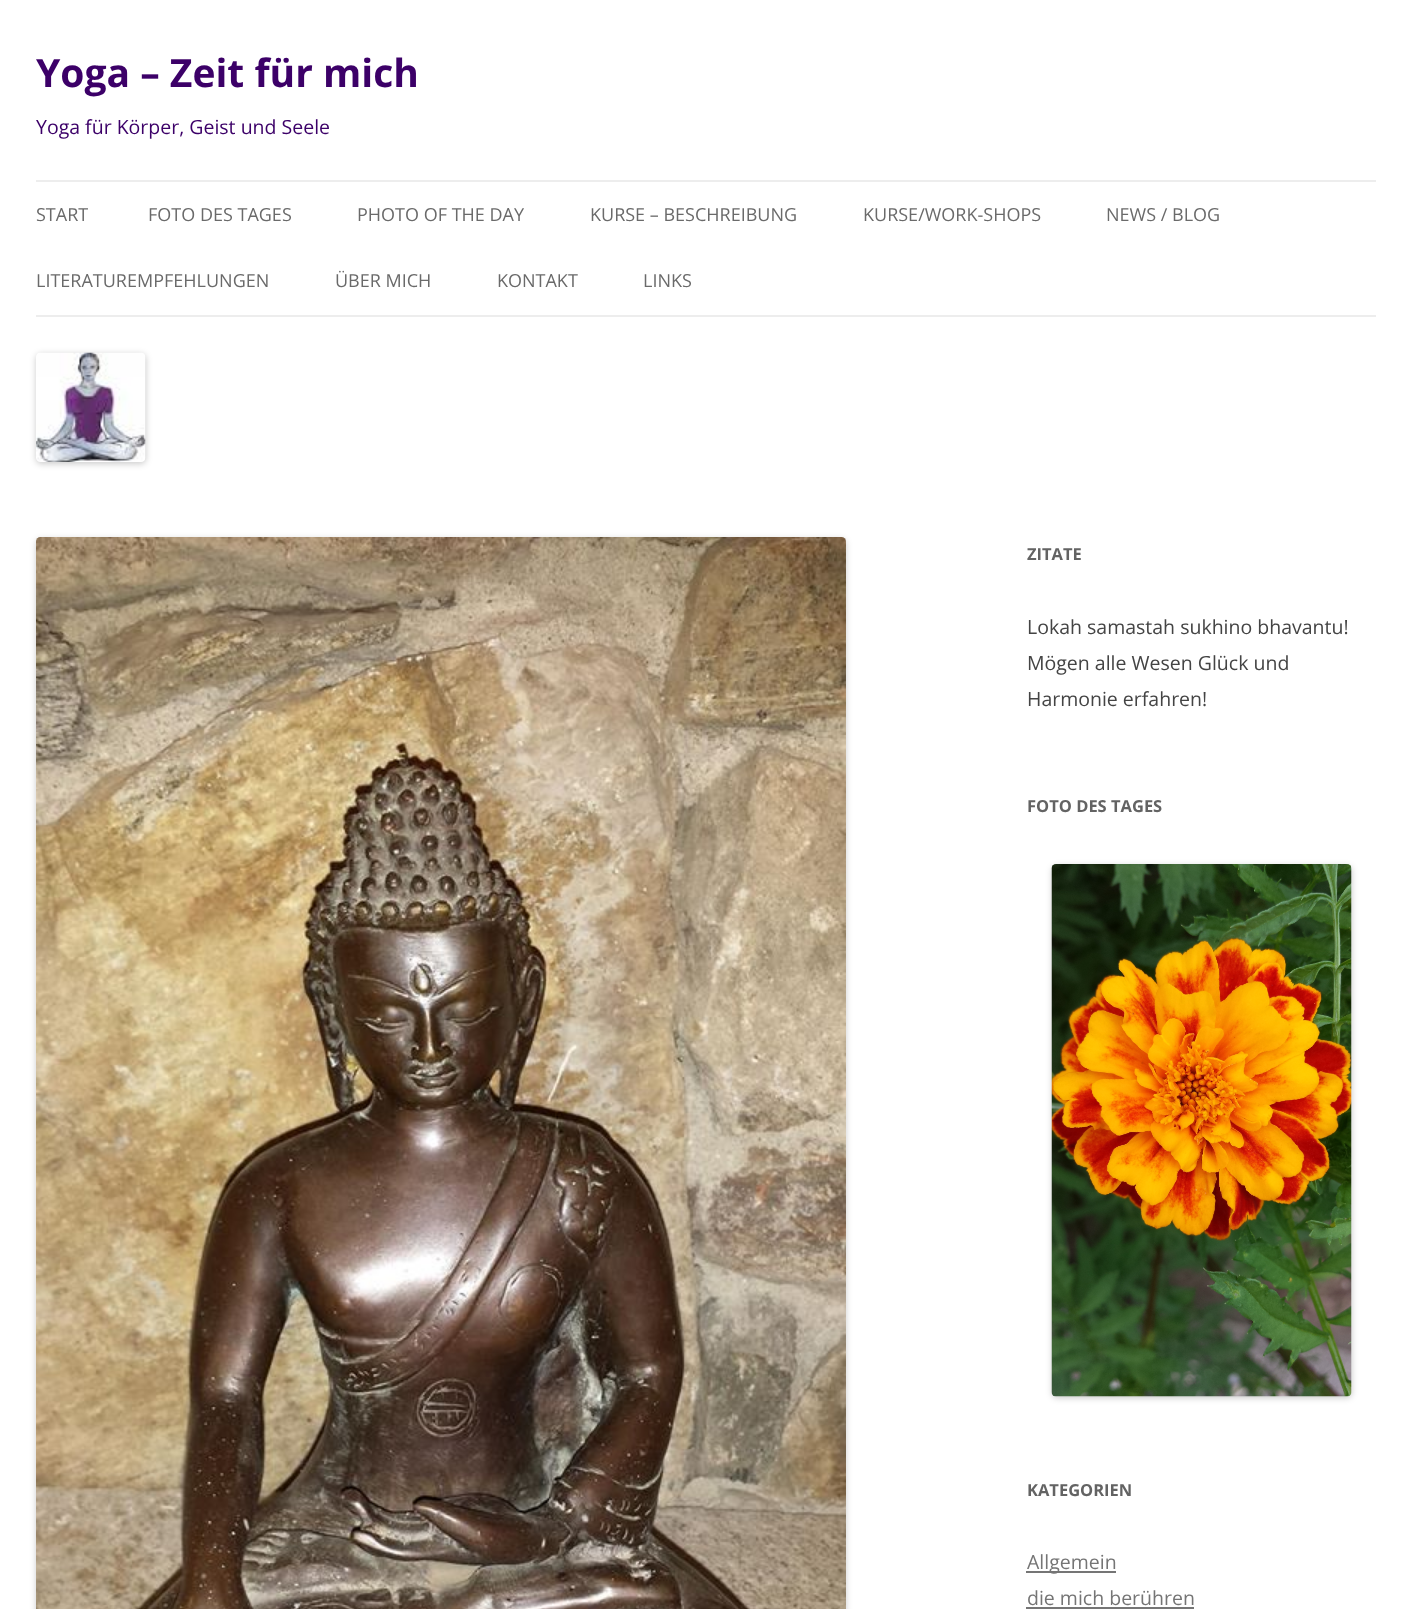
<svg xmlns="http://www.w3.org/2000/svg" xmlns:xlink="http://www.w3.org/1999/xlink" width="1411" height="1609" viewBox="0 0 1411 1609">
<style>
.cls-1{font:bold 39px Open Sans;fill:#3c0068}
.cls-2{font:19.5px Open Sans;fill:#3c0068}
.cls-3{font:18px Open Sans;fill:#6a6a6a}
.cls-4{font:bold 16.5px Open Sans;fill:#636363}
.cls-5{font:19.5px Open Sans;fill:#444444}
.cls-6{font:19.5px Open Sans;fill:#757575}
</style>
<rect width="100%" height="100%" fill="#ffffff"/>
<rect fill="#ededed" x="36" y="180" width="1340" height="2"/>
<rect fill="#ededed" x="36" y="315" width="1340" height="2"/>
<rect fill="#000000" fill-opacity="0.2" filter="blur(3px)" x="36" y="354" width="110" height="110" rx="5"/>
<image xlink:href="image0.png" x="36" y="352" width="110" height="110"/>
<rect fill="#000000" fill-opacity="0.2" filter="blur(3px)" x="36" y="539" width="810" height="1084" rx="5"/>
<image xlink:href="image1.png" x="36" y="537" width="810" height="1072"/>
<rect fill="#000000" fill-opacity="0.2" filter="blur(3px)" x="1052" y="866" width="300" height="532" rx="5"/>
<image xlink:href="image2.png" x="1051" y="864" width="301" height="533"/>
<rect fill="#757575" x="1026" y="1571" width="90" height="2"/>
<rect fill="#757575" x="1026" y="1607" width="168" height="2"/>
<text class="cls-1" x="36" y="87">Yoga – Zeit für mich</text>
<text class="cls-2" x="36" y="134">Yoga für Körper, Geist und Seele</text>
<text class="cls-3" x="36" y="221">START</text>
<text class="cls-3" x="148" y="221">FOTO DES TAGES</text>
<text class="cls-3" x="357" y="221">PHOTO OF THE DAY</text>
<text class="cls-3" x="590" y="221">KURSE – BESCHREIBUNG</text>
<text class="cls-3" x="863" y="221">KURSE/WORK-SHOPS</text>
<text class="cls-3" x="1106" y="221">NEWS / BLOG</text>
<text class="cls-3" x="36" y="287">LITERATUREMPFEHLUNGEN</text>
<text class="cls-3" x="335" y="287">ÜBER MICH</text>
<text class="cls-3" x="497" y="287">KONTAKT</text>
<text class="cls-3" x="643" y="287">LINKS</text>
<text class="cls-4" x="1027" y="560">ZITATE</text>
<text class="cls-5"><tspan x="1027" y="634">Lokah samastah sukhino bhavantu!</tspan><tspan x="1027" y="670">Mögen alle Wesen Glück und</tspan><tspan x="1027" y="706">Harmonie erfahren!</tspan></text>
<text class="cls-4" x="1027" y="812">FOTO DES TAGES</text>
<text class="cls-4" x="1027" y="1496">KATEGORIEN</text>
<text class="cls-6"><tspan x="1027" y="1569">Allgemein</tspan><tspan x="1027" y="1605">die mich berühren</tspan></text>
</svg>
